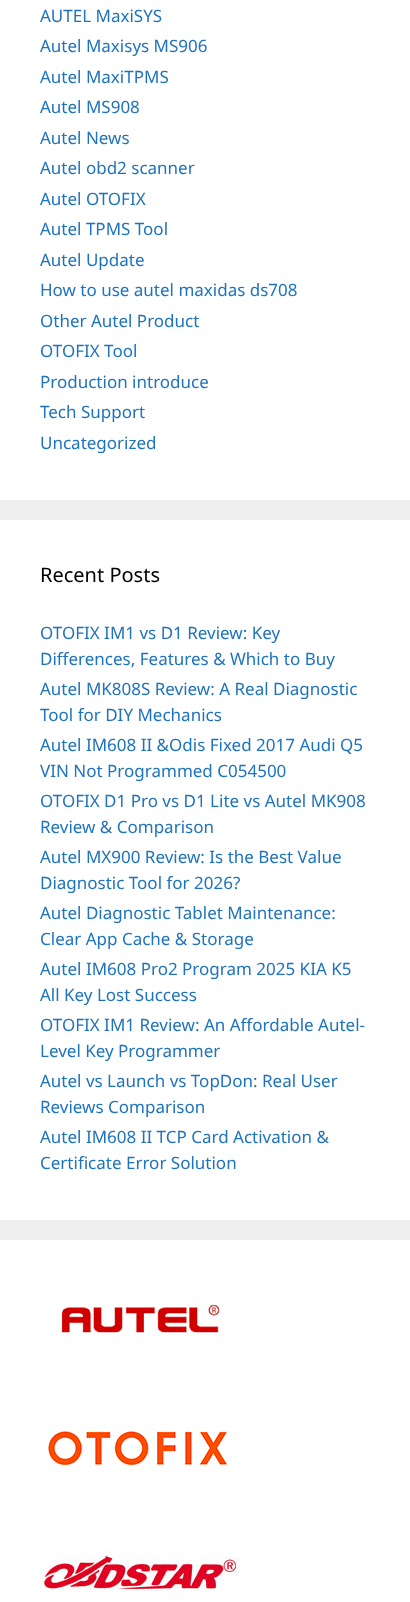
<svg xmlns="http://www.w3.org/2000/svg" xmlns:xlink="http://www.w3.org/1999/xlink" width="410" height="1602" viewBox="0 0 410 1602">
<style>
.cls-1{font:17px Noto Sans;fill:#1e73be}
.cls-2{font:20px Noto Sans;fill:#000000}
</style>
<rect width="100%" height="100%" fill="#efefef"/>
<rect fill="#ffffff" x="0" y="0" width="410" height="500"/>
<rect fill="#ffffff" x="0" y="520" width="410" height="700"/>
<rect fill="#ffffff" x="0" y="1240" width="410" height="362"/>
<image xlink:href="image0.png" x="61" y="1304" width="159" height="29"/>
<image xlink:href="image1.png" x="48" y="1431" width="181" height="39"/>
<image xlink:href="image2.png" x="40" y="1549" width="200" height="40"/>
<text class="cls-1"><tspan x="40" y="22">AUTEL MaxiSYS</tspan><tspan x="40" y="52">Autel Maxisys MS906</tspan><tspan x="40" y="83">Autel MaxiTPMS</tspan><tspan x="40" y="113">Autel MS908</tspan><tspan x="40" y="144">Autel News</tspan><tspan x="40" y="174">Autel obd2 scanner</tspan><tspan x="40" y="205">Autel OTOFIX</tspan><tspan x="40" y="235">Autel TPMS Tool</tspan><tspan x="40" y="266">Autel Update</tspan><tspan x="40" y="296">How to use autel maxidas ds708</tspan><tspan x="40" y="327">Other Autel Product</tspan><tspan x="40" y="357">OTOFIX Tool</tspan><tspan x="40" y="388">Production introduce</tspan><tspan x="40" y="418">Tech Support</tspan><tspan x="40" y="449">Uncategorized</tspan></text>
<text class="cls-2" x="40" y="582">Recent Posts</text>
<text class="cls-1"><tspan x="40" y="639">OTOFIX IM1 vs D1 Review: Key</tspan><tspan x="40" y="665">Differences, Features &amp; Which to Buy</tspan><tspan x="40" y="695">Autel MK808S Review: A Real Diagnostic</tspan><tspan x="40" y="721">Tool for DIY Mechanics</tspan><tspan x="40" y="751">Autel IM608 II &amp;Odis Fixed 2017 Audi Q5</tspan><tspan x="40" y="777">VIN Not Programmed C054500</tspan><tspan x="40" y="807">OTOFIX D1 Pro vs D1 Lite vs Autel MK908</tspan><tspan x="40" y="833">Review &amp; Comparison</tspan><tspan x="40" y="863">Autel MX900 Review: Is the Best Value</tspan><tspan x="40" y="889">Diagnostic Tool for 2026?</tspan><tspan x="40" y="919">Autel Diagnostic Tablet Maintenance:</tspan><tspan x="40" y="945">Clear App Cache &amp; Storage</tspan><tspan x="40" y="975">Autel IM608 Pro2 Program 2025 KIA K5</tspan><tspan x="40" y="1001">All Key Lost Success</tspan><tspan x="40" y="1031">OTOFIX IM1 Review: An Affordable Autel-</tspan><tspan x="40" y="1057">Level Key Programmer</tspan><tspan x="40" y="1087">Autel vs Launch vs TopDon: Real User</tspan><tspan x="40" y="1113">Reviews Comparison</tspan><tspan x="40" y="1143">Autel IM608 II TCP Card Activation &amp;</tspan><tspan x="40" y="1169">Certificate Error Solution</tspan></text>
</svg>
